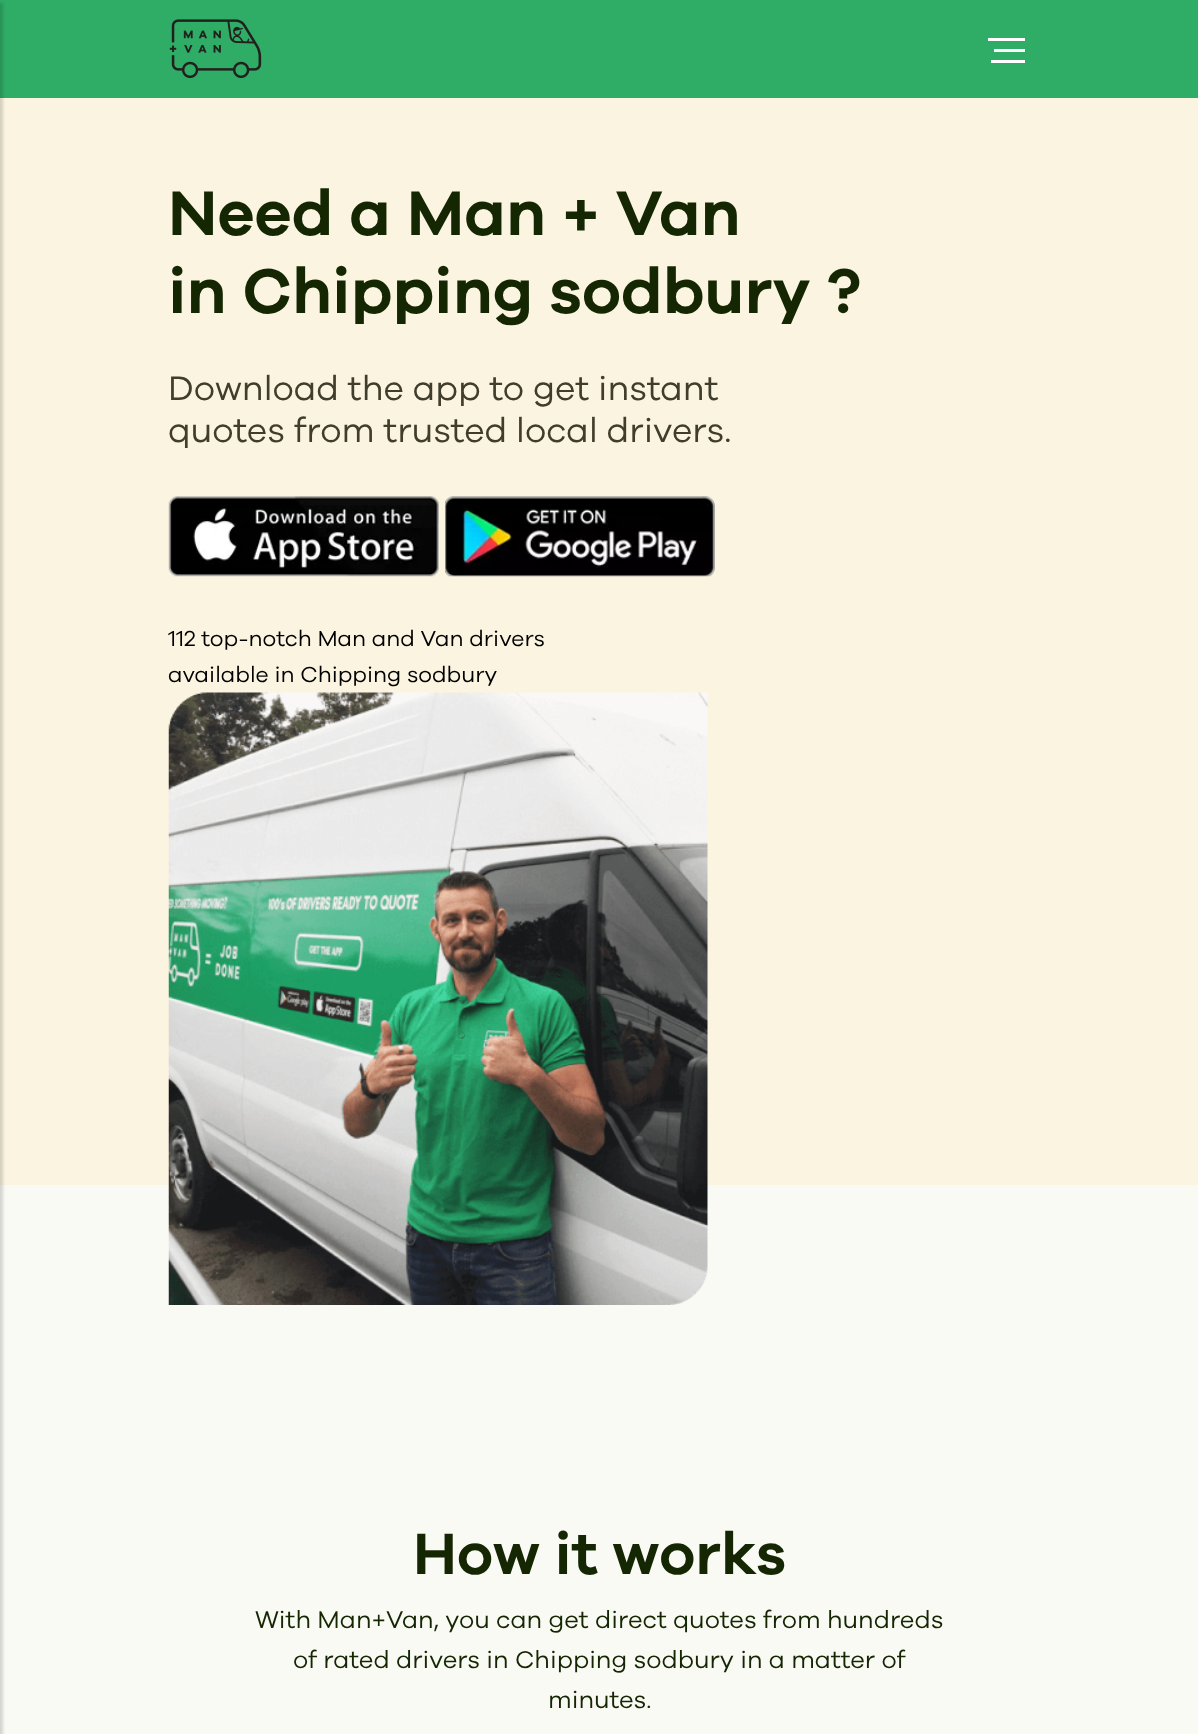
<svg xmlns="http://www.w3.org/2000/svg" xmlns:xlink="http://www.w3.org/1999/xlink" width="1198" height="1734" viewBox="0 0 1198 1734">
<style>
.cls-1{font:600 65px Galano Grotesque;fill:#142602}
.cls-2{font:35px Galano Grotesque;fill:#403d2d}
.cls-3{font:22.5px Galano Grotesque;fill:#000000}
.cls-4{font:600 60px Galano Grotesque;fill:#142602}
.cls-5{font:25px Galano Grotesque;fill:#142602}
</style>
<rect width="100%" height="100%" fill="#fafaf5"/>
<rect fill="#2fad66" x="0" y="0" width="1198" height="98"/>
<rect fill="#faf4e0" x="0" y="98" width="1198" height="1087"/>
<rect fill="#000000" fill-opacity="0.15" filter="blur(1.5px)" x="-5" y="3" width="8" height="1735"/>
<image xlink:href="image0.png" x="169" y="19" width="93" height="59"/>
<rect fill="#ffffff" x="988" y="38" width="37" height="3"/>
<rect fill="#ffffff" x="994" y="49" width="31" height="3"/>
<rect fill="#ffffff" x="991" y="60" width="34" height="3"/>
<image xlink:href="image1.png" x="168" y="496" width="271" height="81"/>
<image xlink:href="image2.png" x="445" y="496" width="270" height="81"/>
<image xlink:href="image3.png" x="168" y="692" width="540" height="613"/>
<text class="cls-1"><tspan x="168" y="235">Need a Man + Van</tspan><tspan x="168" y="313">in Chipping sodbury ?</tspan></text>
<text class="cls-2"><tspan x="168" y="400">Download the app to get instant</tspan><tspan x="168" y="442">quotes from trusted local drivers.</tspan></text>
<text class="cls-3"><tspan x="168" y="646">112 top-notch Man and Van drivers</tspan><tspan x="168" y="682">available in Chipping sodbury</tspan></text>
<text class="cls-4" x="413" y="1574">How it works</text>
<text class="cls-5" x="255" y="1628">With Man+Van, you can get direct quotes from hundreds</text>
<text class="cls-5" x="293" y="1668">of rated drivers in Chipping sodbury in a matter of</text>
<text class="cls-5" x="548" y="1708">minutes.</text>
</svg>
